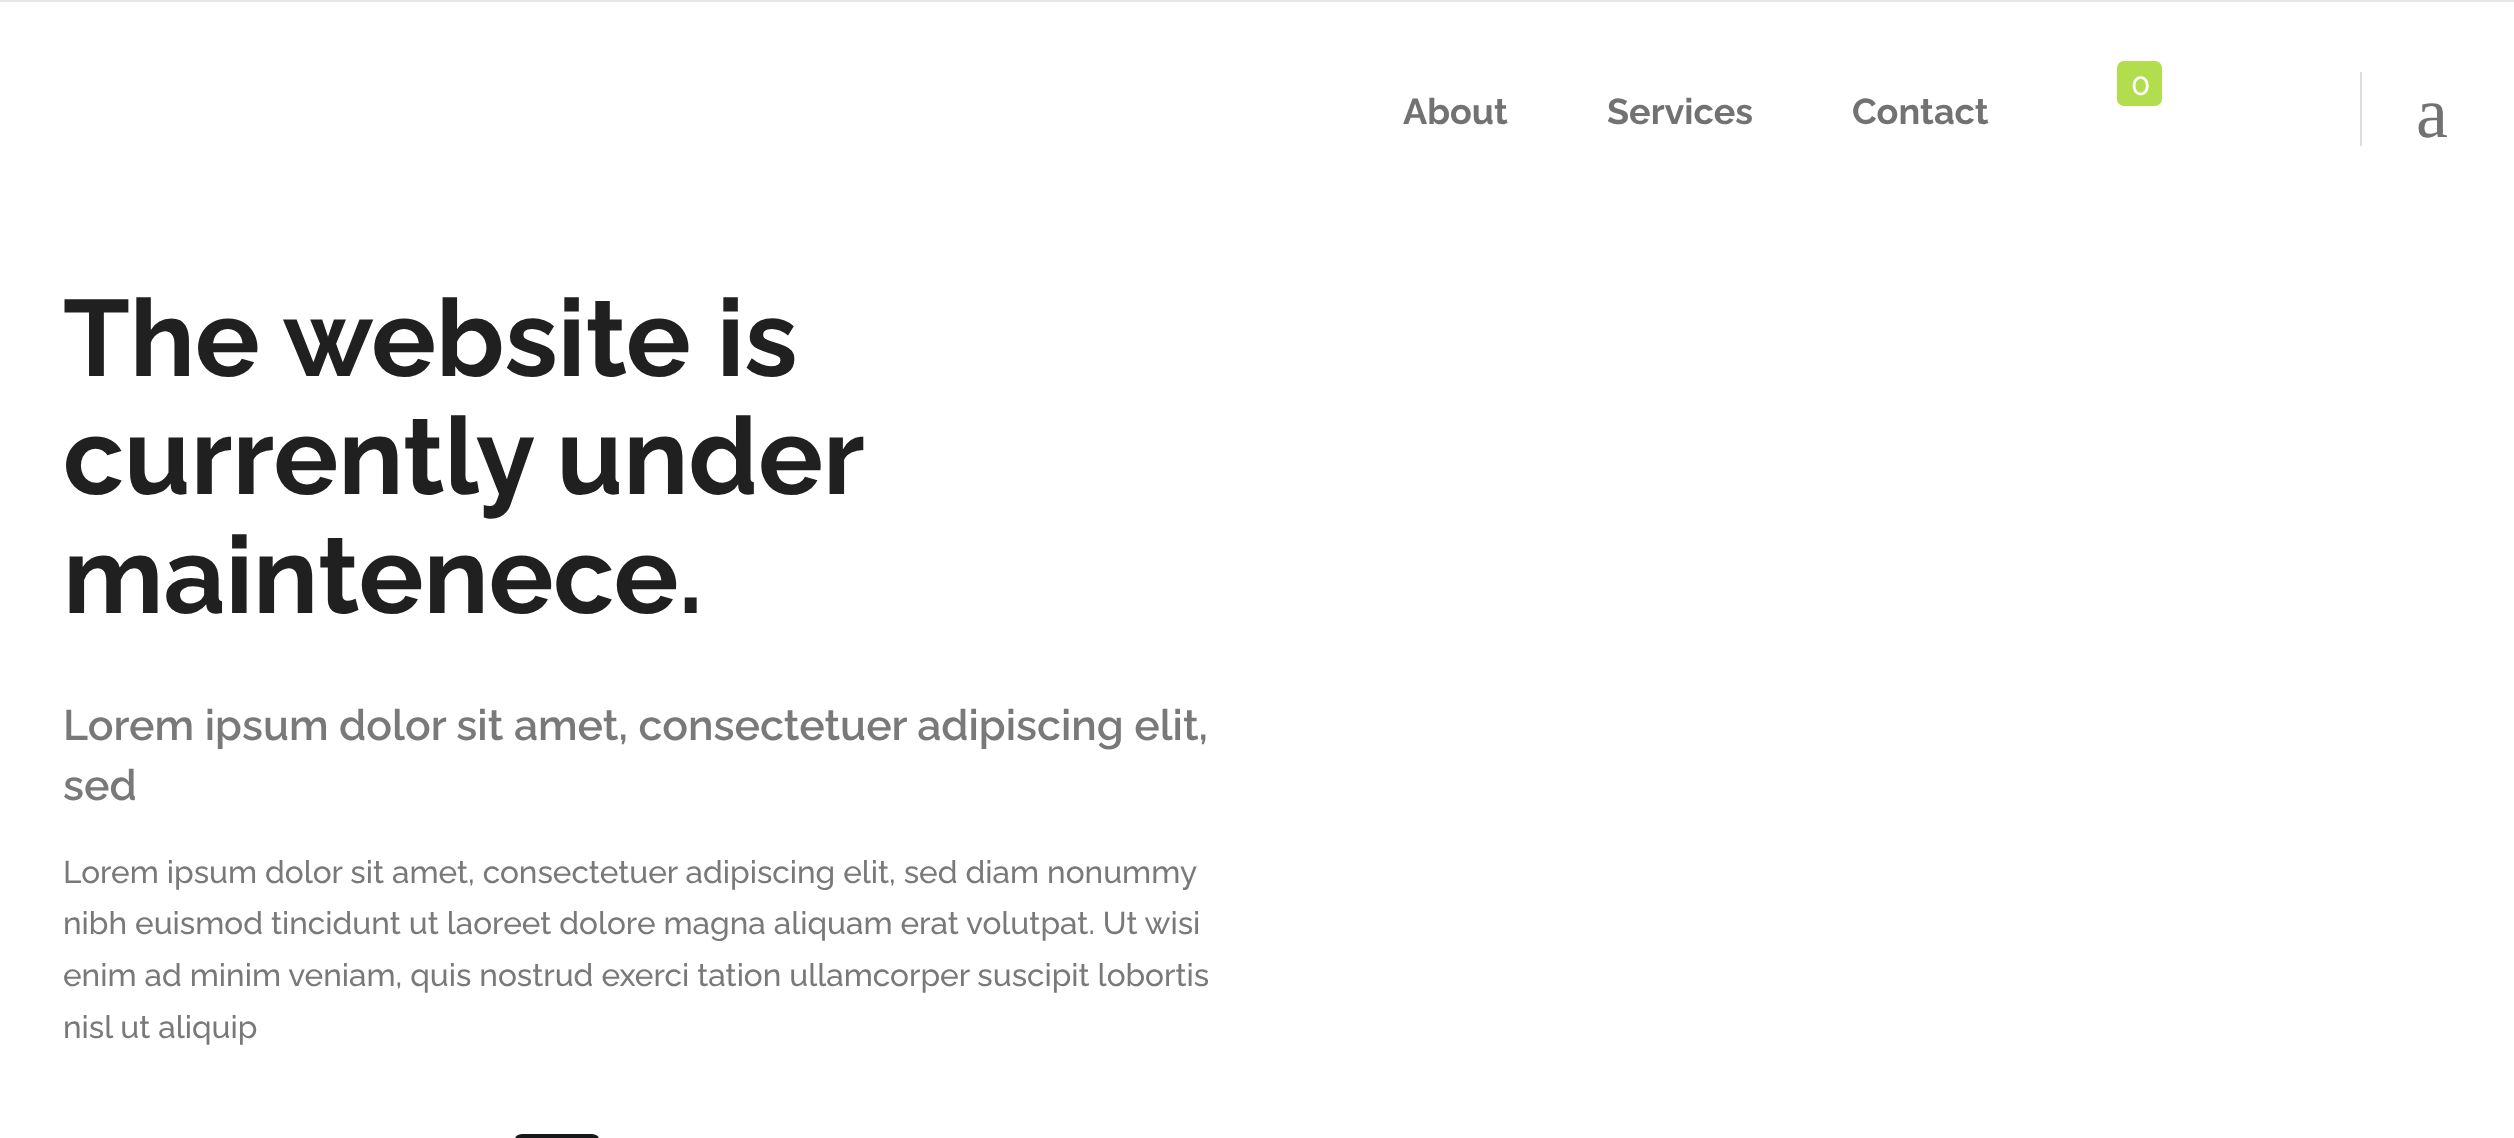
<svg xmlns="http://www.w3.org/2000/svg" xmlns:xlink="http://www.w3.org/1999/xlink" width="2514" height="1138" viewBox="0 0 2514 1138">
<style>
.cls-1{font:500 31.5px Raleway;fill:#ffffff}
.cls-2{font:bold 36px Raleway;fill:#727272}
.cls-3{font:72px Liberation Serif;fill:#727272}
.cls-4{font:bold 108px Raleway;fill:#202020}
.cls-5{font:600 42.75px Raleway;fill:#797979}
.cls-6{font:500 31.5px Raleway;fill:#797979}
</style>
<rect width="100%" height="100%" fill="#ffffff"/>
<rect fill="#e7e7e7" x="0" y="0" width="2514" height="2"/>
<rect fill="#b2dd4c" x="2117" y="61" width="45" height="45" rx="7"/>
<rect fill="#dddddd" x="2360" y="72" width="2" height="74"/>
<rect fill="#161719" x="515" y="1134" width="84" height="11" rx="7"/>
<text class="cls-1" x="2131" y="95">0</text>
<text class="cls-2" x="1403" y="124">About</text>
<text class="cls-2" x="1607" y="124">Services</text>
<text class="cls-2" x="1852" y="124">Contact</text>
<text class="cls-3" x="2416" y="137">a</text>
<text class="cls-4"><tspan x="63" y="376">The website is</tspan><tspan x="63" y="494" word-spacing="-2">currently under</tspan><tspan x="63" y="613">maintenece.</tspan></text>
<text class="cls-5"><tspan x="63" y="740">Lorem ipsum dolor sit amet, consectetuer adipiscing elit,</tspan><tspan x="63" y="800">sed</tspan></text>
<text class="cls-6"><tspan x="63" y="883">Lorem ipsum dolor sit amet, consectetuer adipiscing elit, sed diam nonummy</tspan><tspan x="63" y="934">nibh euismod tincidunt ut laoreet dolore magna aliquam erat volutpat. Ut wisi</tspan><tspan x="63" y="986">enim ad minim veniam, quis nostrud exerci tation ullamcorper suscipit lobortis</tspan><tspan x="63" y="1038">nisl ut aliquip</tspan></text>
</svg>
